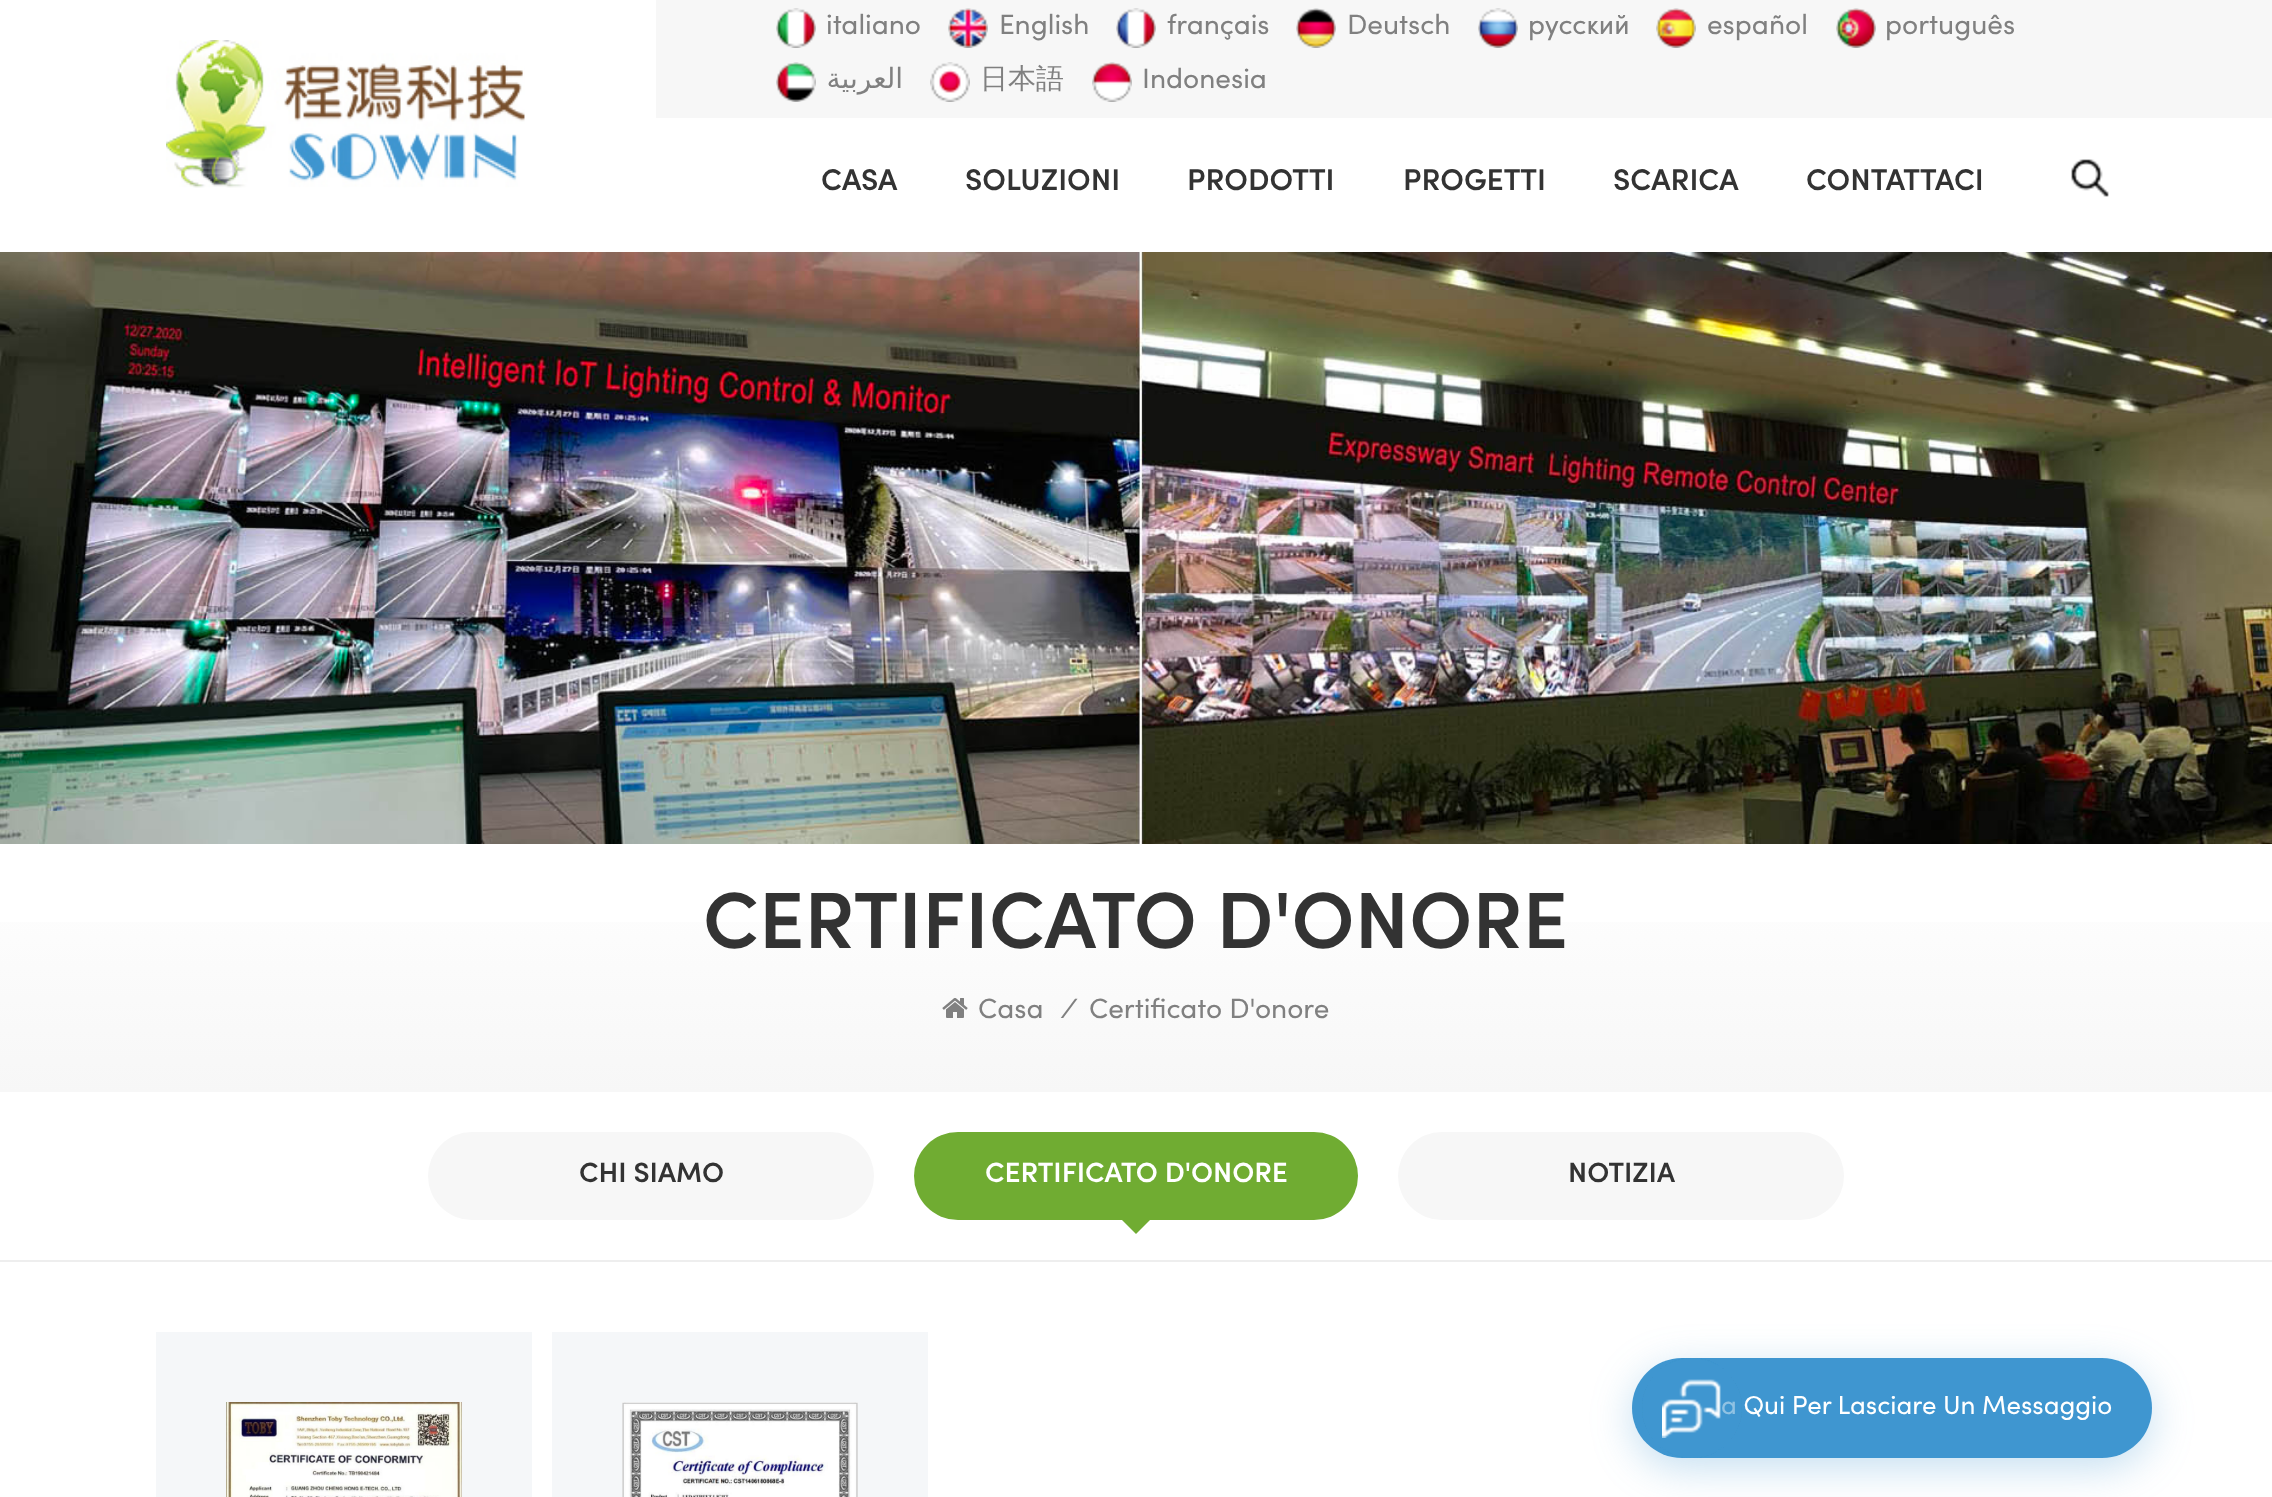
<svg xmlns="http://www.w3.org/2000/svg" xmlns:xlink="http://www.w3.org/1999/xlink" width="2272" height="1497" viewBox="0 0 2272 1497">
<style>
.cls-1{font:28px Sofia;fill:#808080}
.cls-2{font:28px DejaVu Sans;direction:rtl;fill:#808080}
.cls-3{font:500 28px WenQuanYi Zen Hei;fill:#808080}
.cls-4{font:600 30px Sofia;fill:#333333}
.cls-5{font:600 80px Sofia;fill:#333333}
.cls-6{font:italic 28px Sofia;fill:#808080}
.cls-7{font:600 28px Sofia;fill:#333333}
.cls-8{font:600 28px Sofia;fill:#ffffff}
.cls-9{font:26px Sofia;fill:#ffffff}
</style>
<defs>
<linearGradient id="g1" gradientUnits="userSpaceOnUse" x1="1136" y1="844" x2="1136" y2="1092"><stop offset="0" stop-color="#ffffff"/><stop offset="1" stop-color="#f7f7f7"/></linearGradient>
</defs>
<rect width="100%" height="100%" fill="#ffffff"/>
<image xlink:href="image0.png" x="166" y="40" width="359" height="148"/>
<rect fill="#f7f7f7" x="656" y="0" width="1616" height="118"/>
<image xlink:href="image1.png" x="776" y="8" width="40" height="40"/>
<image xlink:href="image2.png" x="948" y="8" width="40" height="40"/>
<image xlink:href="image3.png" x="1116" y="8" width="40" height="40"/>
<image xlink:href="image4.png" x="1296" y="8" width="40" height="40"/>
<image xlink:href="image5.png" x="1478" y="8" width="40" height="40"/>
<image xlink:href="image6.png" x="1656" y="8" width="40" height="40"/>
<image xlink:href="image7.png" x="1836" y="8" width="40" height="40"/>
<image xlink:href="image8.png" x="776" y="62" width="40" height="40"/>
<image xlink:href="image9.png" x="930" y="62" width="40" height="40"/>
<image xlink:href="image10.png" x="1092" y="62" width="40" height="40"/>
<image xlink:href="image11.png" x="2071" y="159" width="38" height="38"/>
<image xlink:href="image12.png" x="0" y="252" width="2272" height="592"/>
<rect fill="url(#g1)" x="0" y="922" width="2272" height="170"/>
<image xlink:href="image13.png" x="942" y="998" width="26" height="20"/>
<rect fill="#eeeeee" x="0" y="1260" width="2272" height="2"/>
<rect fill="#f7f7f7" x="428" y="1132" width="446" height="88" rx="44"/>
<rect fill="#70ac32" x="914" y="1132" width="444" height="88" rx="44"/>
<path fill="#70ac32" d="M1122 1220H1150L1136 1234Z"/>
<rect fill="#f7f7f7" x="1398" y="1132" width="446" height="88" rx="44"/>
<rect fill="#f5f7f9" x="156" y="1332" width="376" height="165"/>
<image xlink:href="image14.png" x="226" y="1402" width="236" height="95"/>
<rect fill="#f5f7f9" x="552" y="1332" width="376" height="165"/>
<image xlink:href="image15.png" x="622" y="1402" width="236" height="95"/>
<rect fill="#3f96d0" fill-opacity="0.3" filter="blur(20px)" x="1632" y="1368" width="520" height="100" rx="50"/>
<rect fill="#3f96d0" x="1632" y="1358" width="520" height="100" rx="50"/>
<text class="cls-1" x="826" y="34">italiano</text>
<text class="cls-1" x="999" y="34">English</text>
<text class="cls-1" x="1167" y="34">français</text>
<text class="cls-1" x="1347" y="34">Deutsch</text>
<text class="cls-1" x="1528" y="34">русский</text>
<text class="cls-1" x="1707" y="34">español</text>
<text class="cls-1" x="1885" y="34">português</text>
<text class="cls-2" x="903" y="88">العربية</text>
<text class="cls-3" x="980" y="88">日本語</text>
<text class="cls-1" x="1142" y="88">Indonesia</text>
<text class="cls-4" x="821" y="190">CASA</text>
<text class="cls-4" x="965" y="190">SOLUZIONI</text>
<text class="cls-4" x="1187" y="190">PRODOTTI</text>
<text class="cls-4" x="1403" y="190">PROGETTI</text>
<text class="cls-4" x="1613" y="190">SCARICA</text>
<text class="cls-4" x="1806" y="190">CONTATTACI</text>
<text class="cls-5" x="703" y="948">CERTIFICATO D'ONORE</text>
<text class="cls-1" x="978" y="1018">Casa</text>
<text class="cls-6" x="1060" y="1018">/</text>
<text class="cls-1" x="1089" y="1018">Certificato D'onore</text>
<text class="cls-7" x="579" y="1182">CHI SIAMO</text>
<text class="cls-8" x="985" y="1182">CERTIFICATO D'ONORE</text>
<text class="cls-7" x="1568" y="1182">NOTIZIA</text>
<text class="cls-9" x="1721" y="1414">a Qui Per Lasciare Un Messaggio</text>
<circle fill="#3f96d0" fill-opacity="0.25" cx="1692" cy="1408" r="50"/>
<circle fill="#3f96d0" fill-opacity="0.25" cx="1692" cy="1408" r="50"/>
<circle fill="#3f96d0" fill-opacity="0.25" cx="1692" cy="1408" r="50"/>
<image xlink:href="image16.png" x="1662" y="1379" width="59" height="59"/>
</svg>
